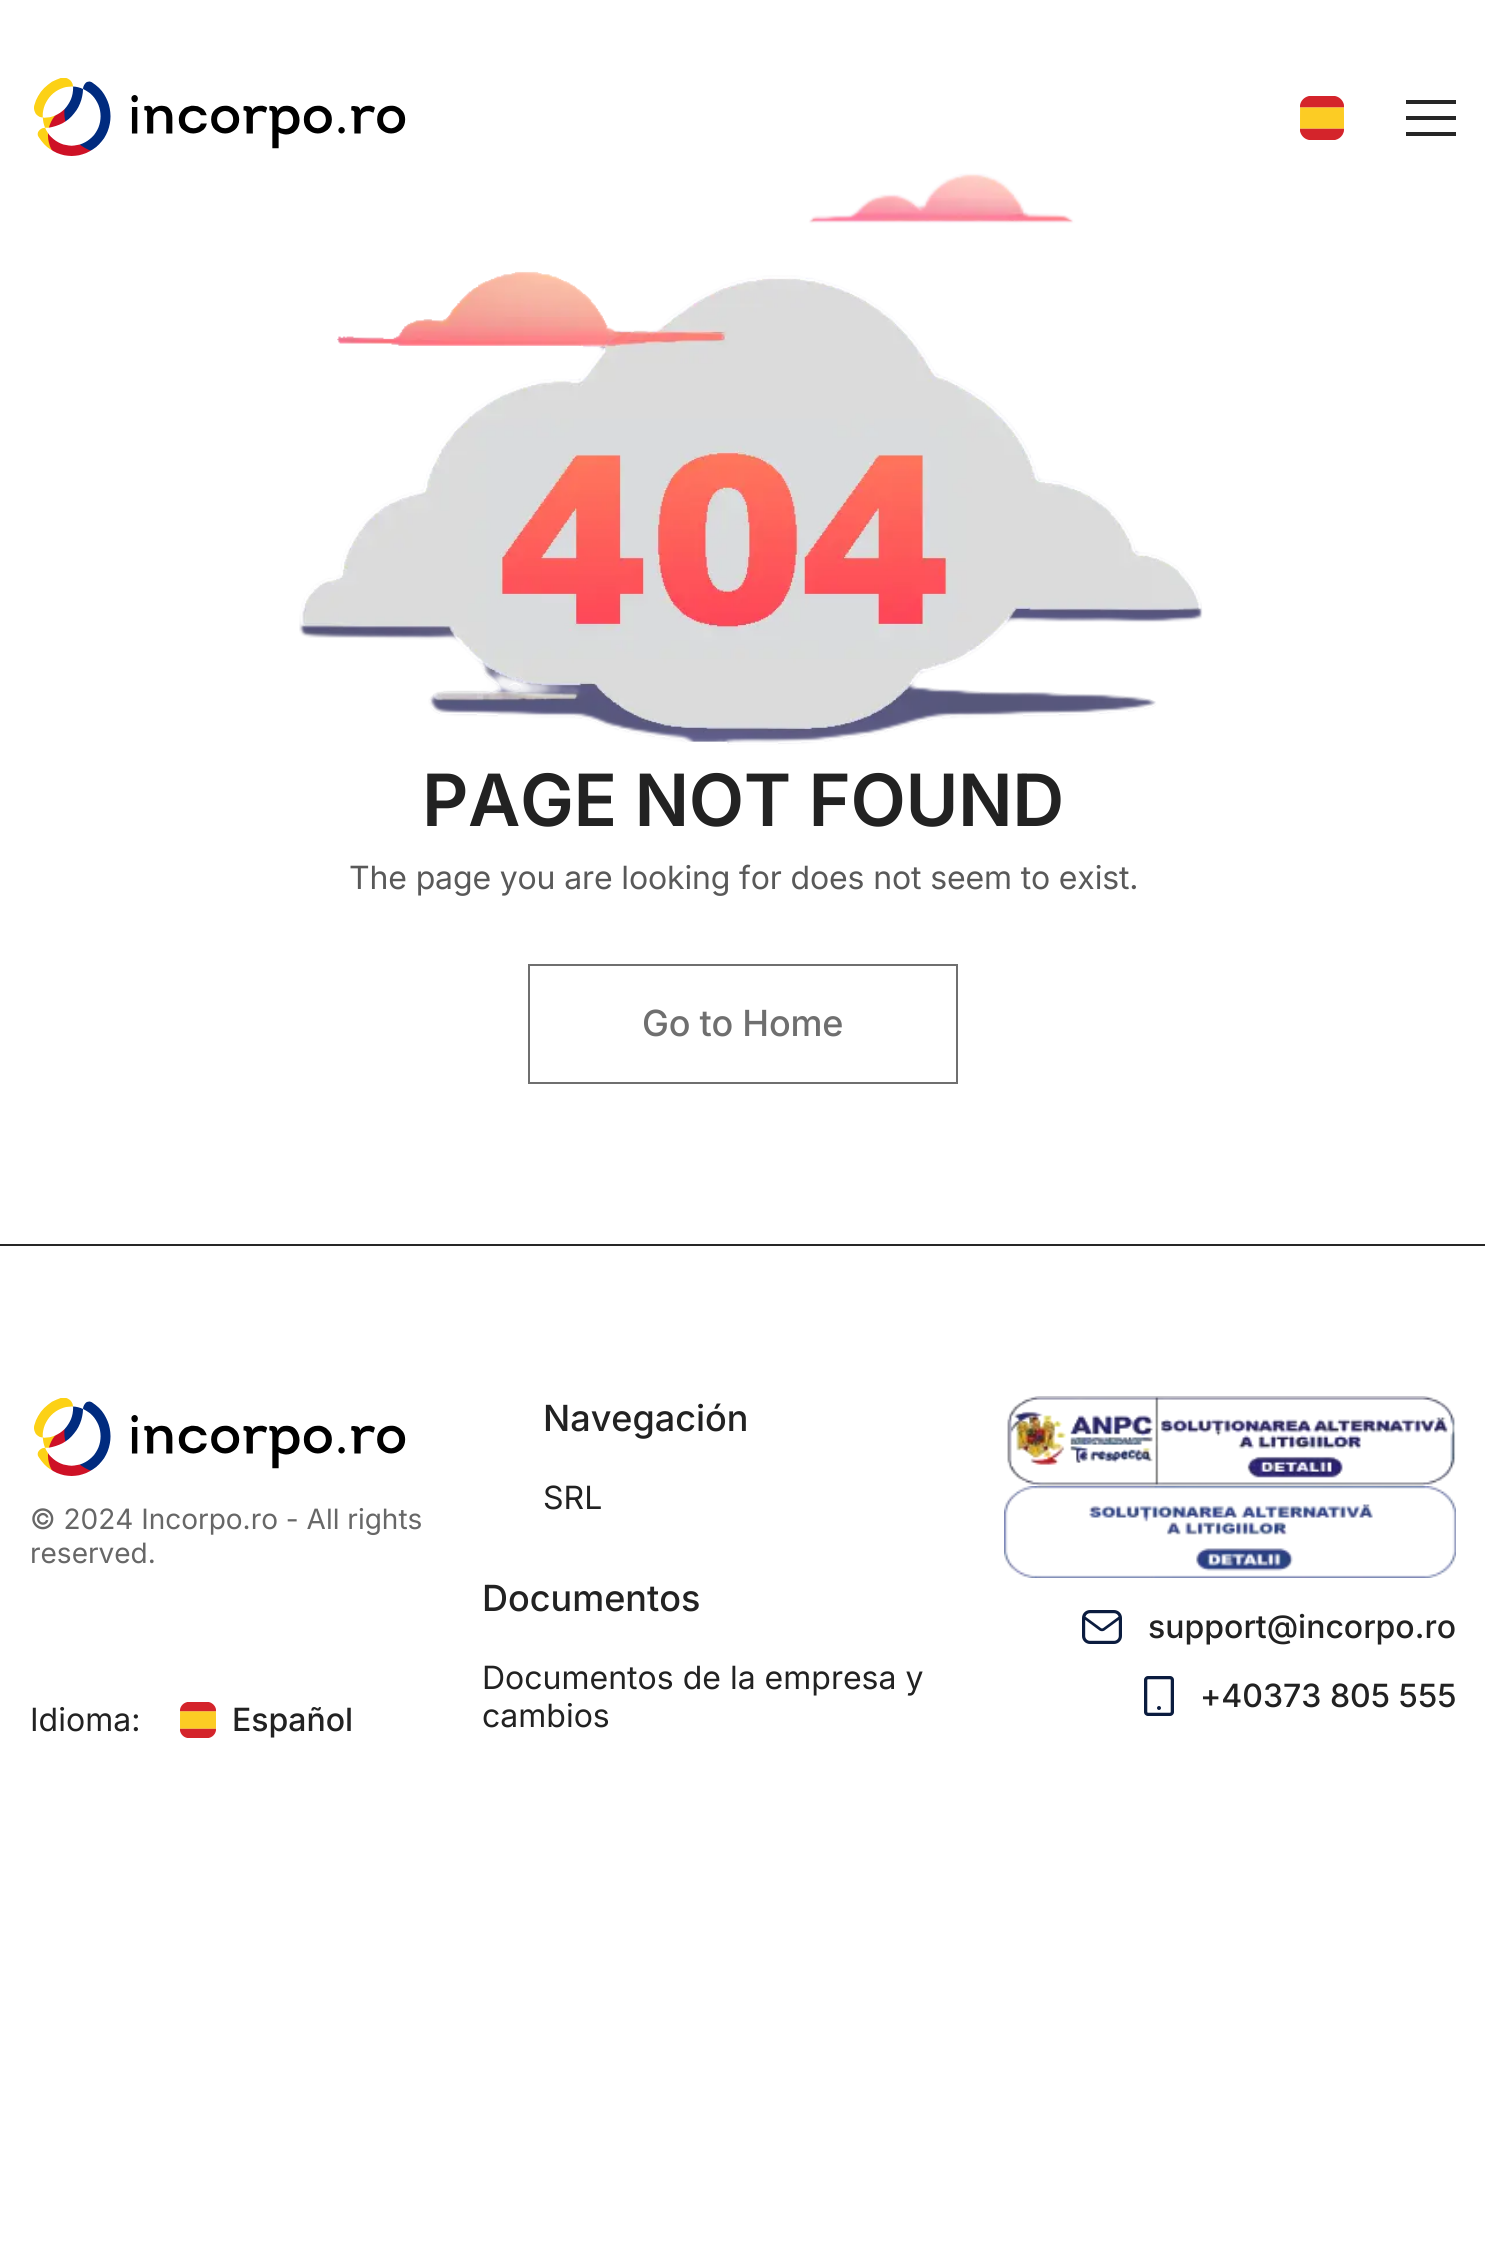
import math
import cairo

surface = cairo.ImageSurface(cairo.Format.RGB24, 1485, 2241)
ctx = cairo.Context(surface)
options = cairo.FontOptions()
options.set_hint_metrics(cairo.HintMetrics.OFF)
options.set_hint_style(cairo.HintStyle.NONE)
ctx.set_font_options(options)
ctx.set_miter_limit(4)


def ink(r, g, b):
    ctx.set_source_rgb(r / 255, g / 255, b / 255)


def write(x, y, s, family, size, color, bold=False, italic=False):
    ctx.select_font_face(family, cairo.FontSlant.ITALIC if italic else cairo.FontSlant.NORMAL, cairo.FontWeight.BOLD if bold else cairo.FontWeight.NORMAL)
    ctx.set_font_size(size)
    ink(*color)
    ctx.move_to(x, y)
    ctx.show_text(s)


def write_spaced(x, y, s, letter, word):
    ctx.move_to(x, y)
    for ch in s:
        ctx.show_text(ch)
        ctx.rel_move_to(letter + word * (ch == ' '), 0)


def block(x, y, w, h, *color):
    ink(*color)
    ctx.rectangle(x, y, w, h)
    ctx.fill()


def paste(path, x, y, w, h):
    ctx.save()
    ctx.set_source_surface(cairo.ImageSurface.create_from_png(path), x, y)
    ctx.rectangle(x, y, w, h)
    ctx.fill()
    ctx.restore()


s1 = dict(family="Inter", size=28, color=(103, 103, 103))
s2 = dict(family="Inter", size=32, color=(34, 34, 34))
s3 = dict(family="Inter Medium", size=32, color=(34, 34, 34))
s4 = dict(family="Inter Medium", size=36, color=(34, 34, 34))

ink(255, 255, 255)
ctx.paint()
paste("pic1.png", 34, 78, 372, 78)
paste("pic2.png", 1300, 96, 44, 44)
block(1406, 100, 50, 4, 38, 38, 38)
block(1406, 116, 50, 4, 38, 38, 38)
block(1406, 132, 50, 4, 38, 38, 38)
paste("pic3.png", 299, 173, 904, 572)
ctx.select_font_face("Inter SemiBold")
ctx.set_font_size(72)
ink(34, 34, 34)
write_spaced(422, 826, "PAGE NOT FOUND", -0.4, 0)
ctx.select_font_face("Inter")
ctx.set_font_size(32)
ink(89, 89, 89)
write_spaced(349, 889, "The page you are looking for does not seem to exist.", -0.15, 0)
ctx.rectangle(529, 965, 428, 118)
ink(111, 111, 111)
ctx.stroke()
ctx.select_font_face("Inter Medium")
ctx.set_font_size(36)
write_spaced(642, 1036, "Go to Home", -0.25, 0)
block(0, 1244, 1485, 2, 38, 38, 38)
paste("pic1.png", 34, 1398, 372, 78)
write(30, 1529, "© 2024 Incorpo.ro - All rights", **s1)
write(30, 1563, "reserved.", **s1)
write(30, 1731, "Idioma:", **s2)
paste("pic4.png", 180, 1702, 36, 36)
write(232, 1731, "Español", **s3)
write(543, 1431, "Navegación", **s4)
write(543, 1509, "SRL", **s2)
write(482, 1611, "Documentos", **s4)
write(482, 1689, "Documentos de la empresa y", **s2)
write(482, 1727, "cambios", **s2)
paste("pic5.png", 1007, 1396, 449, 90)
paste("pic6.png", 1004, 1486, 452, 92)
paste("pic7.png", 1082, 1610, 40, 34)
write(1148, 1638, "support@incorpo.ro", **s3)
paste("pic8.png", 1144, 1676, 30, 40)
write(1200, 1707, "+40373 805 555", **s3)
surface.write_to_png("screenshot.png")
